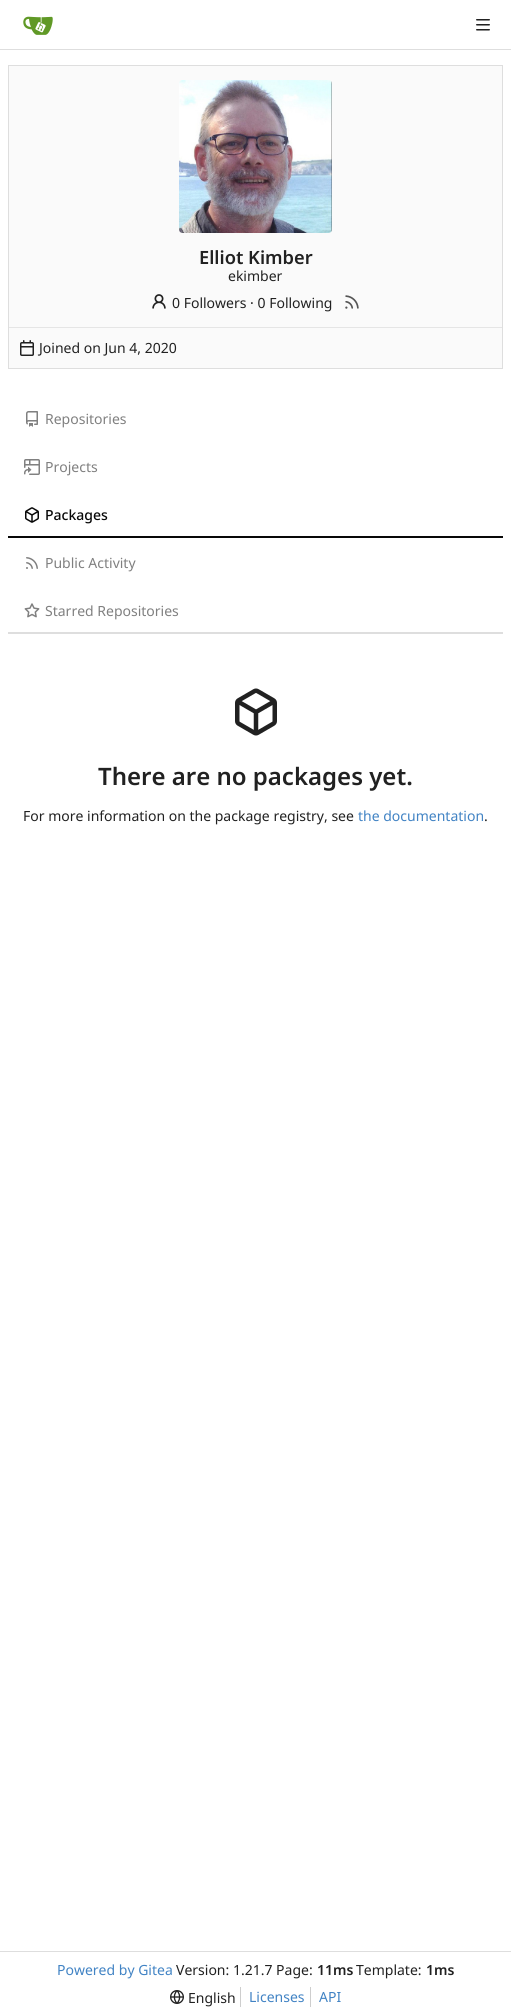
import math
import cairo

surface = cairo.ImageSurface(cairo.Format.RGB24, 511, 2015)
ctx = cairo.Context(surface)
options = cairo.FontOptions()
options.set_hint_metrics(cairo.HintMetrics.OFF)
options.set_hint_style(cairo.HintStyle.NONE)
ctx.set_font_options(options)
ctx.set_miter_limit(4)


def ink(r, g, b):
    ctx.set_source_rgb(r / 255, g / 255, b / 255)


def write(x, y, s, family, size, color, bold=False, italic=False):
    ctx.select_font_face(family, cairo.FontSlant.ITALIC if italic else cairo.FontSlant.NORMAL, cairo.FontWeight.BOLD if bold else cairo.FontWeight.NORMAL)
    ctx.set_font_size(size)
    ink(*color)
    ctx.move_to(x, y)
    ctx.show_text(s)


def block(x, y, w, h, *color):
    ink(*color)
    ctx.rectangle(x, y, w, h)
    ctx.fill()


def paste(path, x, y, w, h):
    ctx.save()
    ctx.set_source_surface(cairo.ImageSurface.create_from_png(path), x, y)
    ctx.rectangle(x, y, w, h)
    ctx.fill()
    ctx.restore()


s1 = dict(family="Noto Sans SemiBold", size=18.25, color=(33, 33, 33))
s2 = dict(family="Noto Sans", size=14, color=(33, 33, 33))
s3 = dict(family="Noto Sans", size=14, color=(128, 128, 128))
s4 = dict(family="Noto Sans Medium", size=14, color=(8, 8, 8))
s5 = dict(family="Noto Sans SemiBold", size=24, color=(33, 33, 33))
s6 = dict(family="Noto Sans", size=14, color=(65, 131, 196))
s7 = dict(family="Noto Sans SemiBold", size=14, color=(33, 33, 33))

ink(255, 255, 255)
ctx.paint()
block(0, 49, 511, 1, 222, 222, 222)
paste("pic1.png", 23, 16, 30, 19)
paste("pic2.png", 476, 19, 14, 12)
ink(250, 250, 250)
ctx.rectangle(8.5, 65.5, 494, 303)
ctx.fill_preserve()
ink(222, 222, 222)
ctx.set_line_width(1)
ctx.stroke()
paste("pic3.png", 179, 80, 153, 153)
write(199, 264, "Elliot Kimber", **s1)
write(228, 281, "ekimber", **s2)
paste("pic4.png", 152, 294, 14, 15)
write(172, 308, "0 Followers · 0 Following", **s2)
paste("pic5.png", 345, 295, 14, 14)
block(9, 327, 493, 1, 229, 229, 229)
paste("pic6.png", 20, 340, 14, 16)
write(39, 353, "Joined on Jun 4, 2020", **s2)
block(8, 632, 495, 2, 222, 222, 222)
paste("pic7.png", 26, 411, 12, 16)
write(45, 424, "Repositories", **s3)
paste("pic8.png", 24, 459, 16, 16)
write(45, 472, "Projects", **s3)
block(8, 536, 495, 2, 8, 8, 8)
paste("pic9.png", 25, 507, 14, 16)
write(45, 520, "Packages", **s4)
paste("pic10.png", 26, 557, 12, 12)
write(45, 568, "Public Activity", **s3)
paste("pic11.png", 24, 603, 16, 15)
write(45, 616, "Starred Repositories", **s3)
paste("pic12.png", 235, 688, 42, 48)
write(98, 785, "There are no packages yet.", **s5)
write(23, 821, "For more information on the package registry, see", **s2)
write(358, 821, "the documentation", **s6)
write(484, 821, ".", **s2)
block(0, 1951, 511, 1, 222, 222, 222)
write(57, 1975, "Powered by Gitea", **s6)
write(176, 1975, "Version: 1.21.7 Page:", **s2)
write(317, 1975, "11ms", **s7)
write(356, 1975, "Template:", **s2)
write(426, 1975, "1ms", **s7)
paste("pic13.png", 170, 1990, 14, 14)
write(188, 2003, "English", **s2)
block(240, 1987, 1, 20, 206, 206, 206)
write(249, 2002, "Licenses", **s6)
block(310, 1987, 1, 20, 206, 206, 206)
write(319, 2002, "API", **s6)
surface.write_to_png("screenshot.png")
